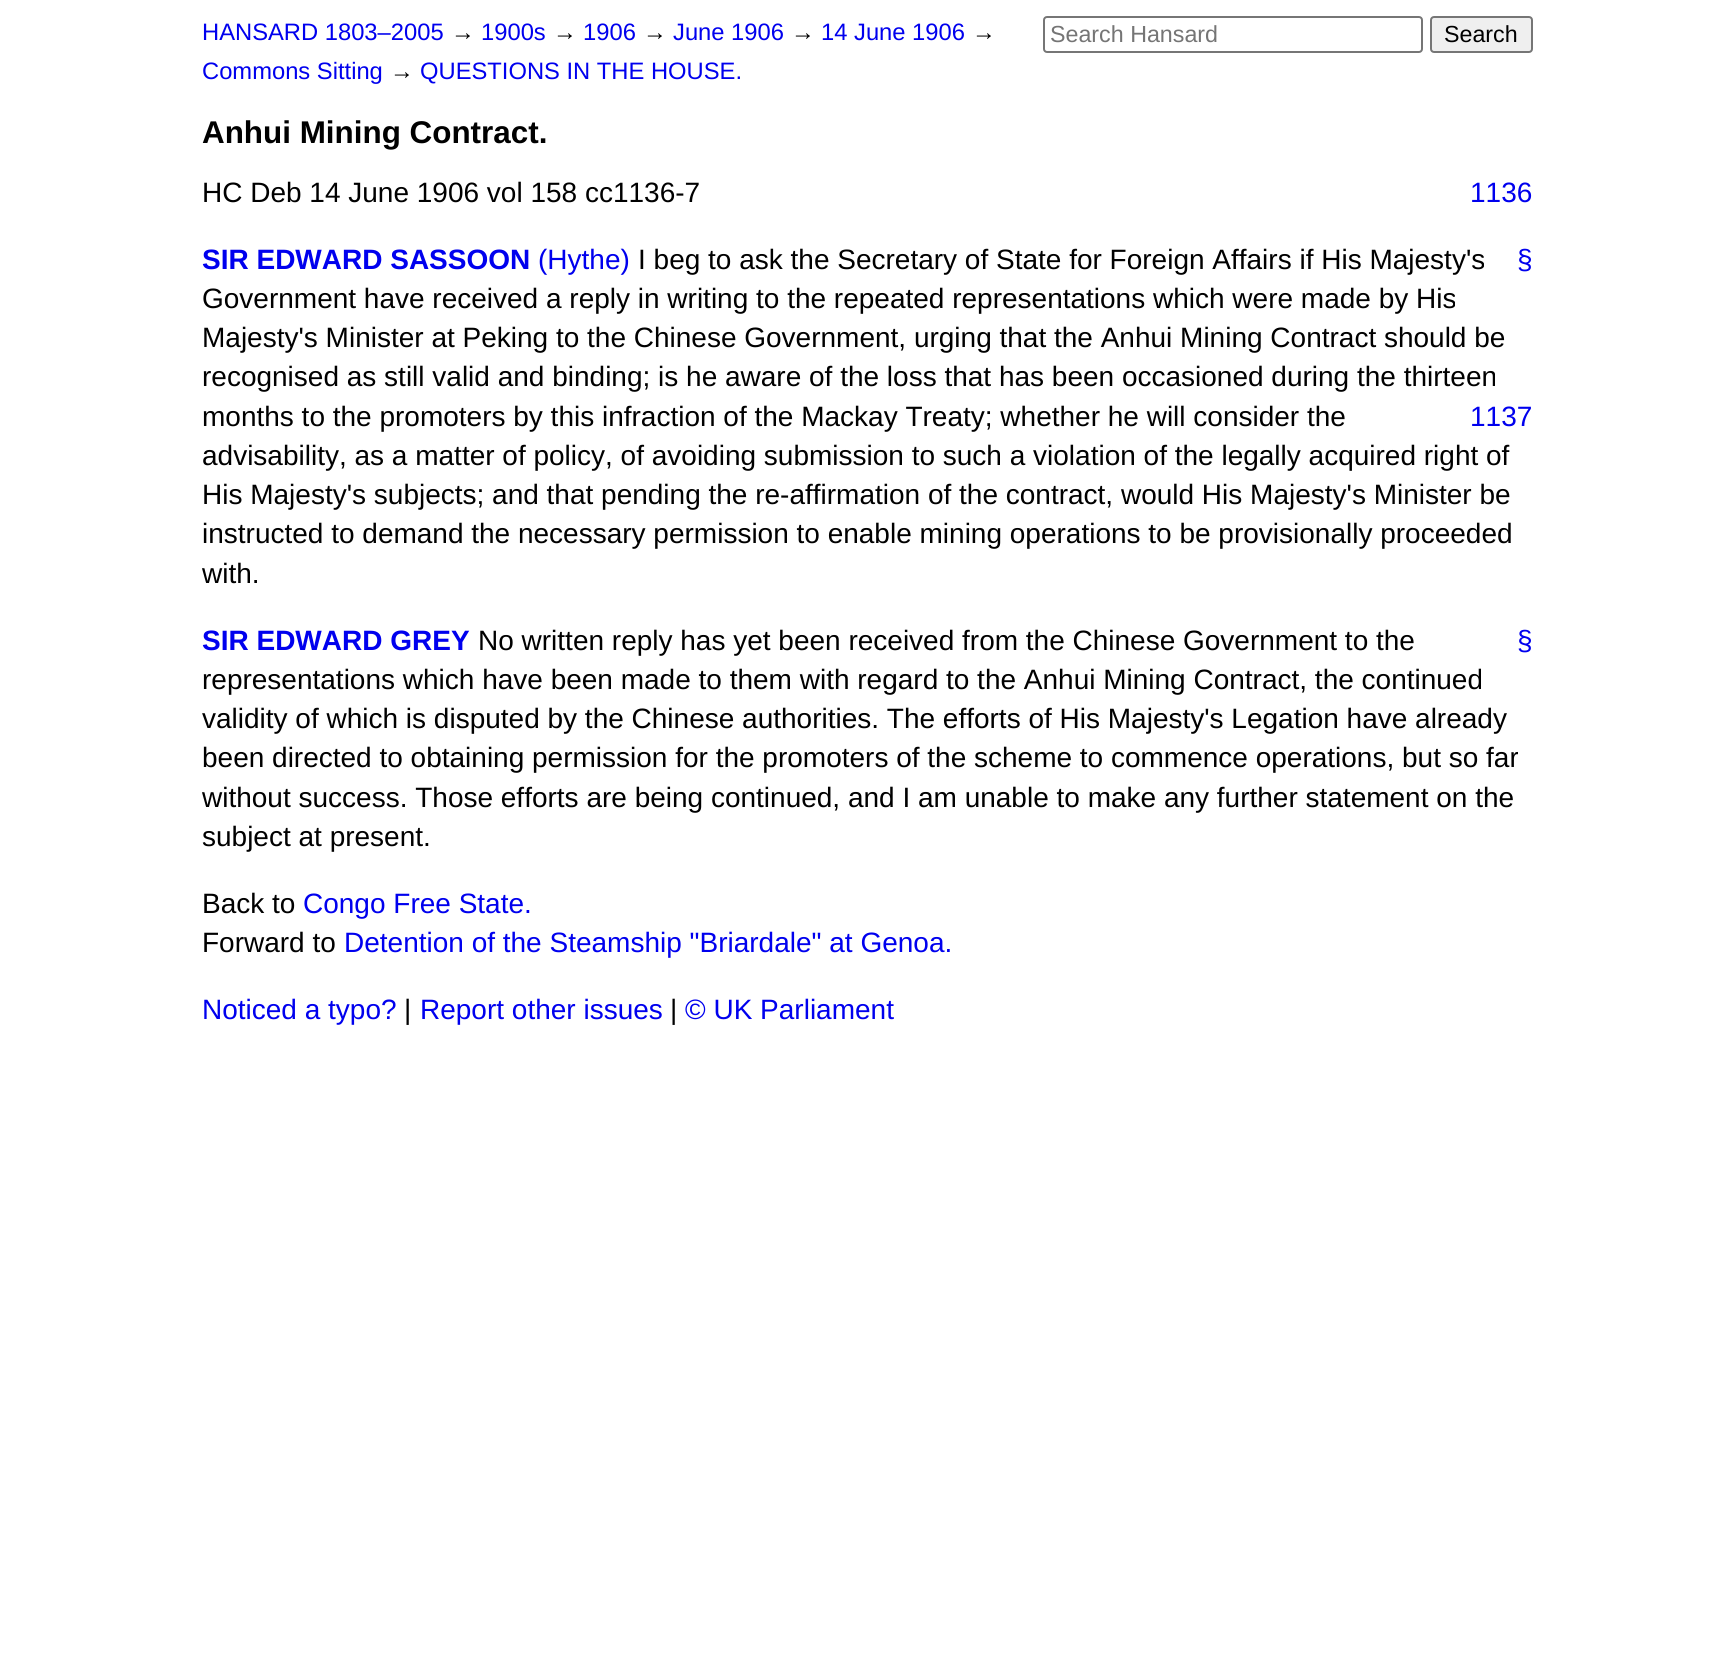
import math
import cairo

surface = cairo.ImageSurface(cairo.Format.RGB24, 1734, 1657)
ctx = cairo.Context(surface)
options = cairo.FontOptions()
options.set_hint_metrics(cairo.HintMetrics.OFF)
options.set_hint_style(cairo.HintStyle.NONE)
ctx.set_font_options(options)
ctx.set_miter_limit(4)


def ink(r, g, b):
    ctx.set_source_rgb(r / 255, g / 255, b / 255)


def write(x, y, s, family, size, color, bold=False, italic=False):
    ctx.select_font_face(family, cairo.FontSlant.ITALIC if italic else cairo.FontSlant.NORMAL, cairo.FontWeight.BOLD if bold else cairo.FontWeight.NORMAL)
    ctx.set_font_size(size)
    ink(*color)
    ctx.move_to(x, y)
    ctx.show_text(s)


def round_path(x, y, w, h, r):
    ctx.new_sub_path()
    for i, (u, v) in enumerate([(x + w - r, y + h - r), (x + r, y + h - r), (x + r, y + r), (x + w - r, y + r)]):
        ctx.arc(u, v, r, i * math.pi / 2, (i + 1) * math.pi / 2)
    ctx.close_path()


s1 = dict(family="Liberation Sans", size=23.75, color=(0, 0, 238))
s2 = dict(family="Liberation Sans", size=23.75, color=(0, 0, 0))
s3 = dict(family="Liberation Sans", size=23.25, color=(117, 117, 117))
s4 = dict(family="Liberation Sans", size=23.25, color=(0, 0, 0))
s5 = dict(family="Liberation Sans", size=31.4, color=(0, 0, 0), bold=True)
s6 = dict(family="Liberation Sans", size=28, color=(0, 0, 0))
s7 = dict(family="Liberation Sans", size=28, color=(0, 0, 238))
s8 = dict(family="Liberation Sans", size=28, color=(0, 0, 238), bold=True)

ink(255, 255, 255)
ctx.paint()
write(202, 40, "HANSARD 1803–2005", **s1)
write(451, 40, "→", **s2)
write(481, 40, "1900s", **s1)
write(553, 40, "→", **s2)
write(583, 40, "1906", **s1)
write(643, 40, "→", **s2)
write(673, 40, "June 1906", **s1)
write(791, 40, "→", **s2)
write(821, 40, "14 June 1906", **s1)
write(972, 40, "→", **s2)
write(202, 79, "Commons Sitting", **s1)
write(390, 79, "→", **s2)
write(420, 79, "QUESTIONS IN THE HOUSE.", **s1)
round_path(1044, 17, 378, 35, 3)
ink(118, 118, 118)
ctx.stroke()
write(1050, 42, "Search Hansard", **s3)
ink(239, 239, 239)
round_path(1431, 17, 101, 35, 3)
ctx.fill_preserve()
ink(118, 118, 118)
ctx.stroke()
write(1444, 42, "Search", **s4)
write(202, 143, "Anhui Mining Contract.", **s5)
write(202, 202, "HC Deb 14 June 1906 vol 158 cc1136-7", **s6)
write(1470, 202, "1136", **s7)
write(638, 269, "I beg to ask the Secretary of State for Foreign Affairs if His Majesty's", **s6)
write(202, 308, "Government have received a reply in writing to the repeated representations which were made by His", **s6)
write(202, 347, "Majesty's Minister at Peking to the Chinese Government, urging that the Anhui Mining Contract should be", **s6)
write(202, 386, "recognised as still valid and binding; is he aware of the loss that has been occasioned during the thirteen", **s6)
write(202, 426, "months to the promoters by this infraction of the Mackay Treaty; whether he will consider the", **s6)
write(1470, 426, "1137", **s7)
write(202, 465, "advisability, as a matter of policy, of avoiding submission to such a violation of the legally acquired right of", **s6)
write(202, 504, "His Majesty's subjects; and that pending the re-affirmation of the contract, would His Majesty's Minister be", **s6)
write(202, 543, "instructed to demand the necessary permission to enable mining operations to be provisionally proceeded", **s6)
write(202, 583, "with.", **s6)
write(202, 269, "SIR EDWARD SASSOON", **s8)
write(538, 269, "(Hythe)", **s7)
write(1517, 269, "§", **s7)
write(202, 650, "SIR EDWARD GREY", **s8)
write(478, 650, "No written reply has yet been received from the Chinese Government to the", **s6)
write(1517, 650, "§", **s7)
write(202, 689, "representations which have been made to them with regard to the Anhui Mining Contract, the continued", **s6)
write(202, 728, "validity of which is disputed by the Chinese authorities. The efforts of His Majesty's Legation have already", **s6)
write(202, 767, "been directed to obtaining permission for the promoters of the scheme to commence operations, but so far", **s6)
write(202, 807, "without success. Those efforts are being continued, and I am unable to make any further statement on the", **s6)
write(202, 846, "subject at present.", **s6)
write(202, 913, "Back to", **s6)
write(303, 913, "Congo Free State.", **s7)
write(202, 952, "Forward to", **s6)
write(344, 952, "Detention of the Steamship \"Briardale\" at Genoa.", **s7)
write(202, 1019, "Noticed a typo?", **s7)
write(404, 1019, "|", **s6)
write(420, 1019, "Report other issues", **s7)
write(670, 1019, "|", **s6)
write(685, 1019, "© UK Parliament", **s7)
surface.write_to_png("screenshot.png")
